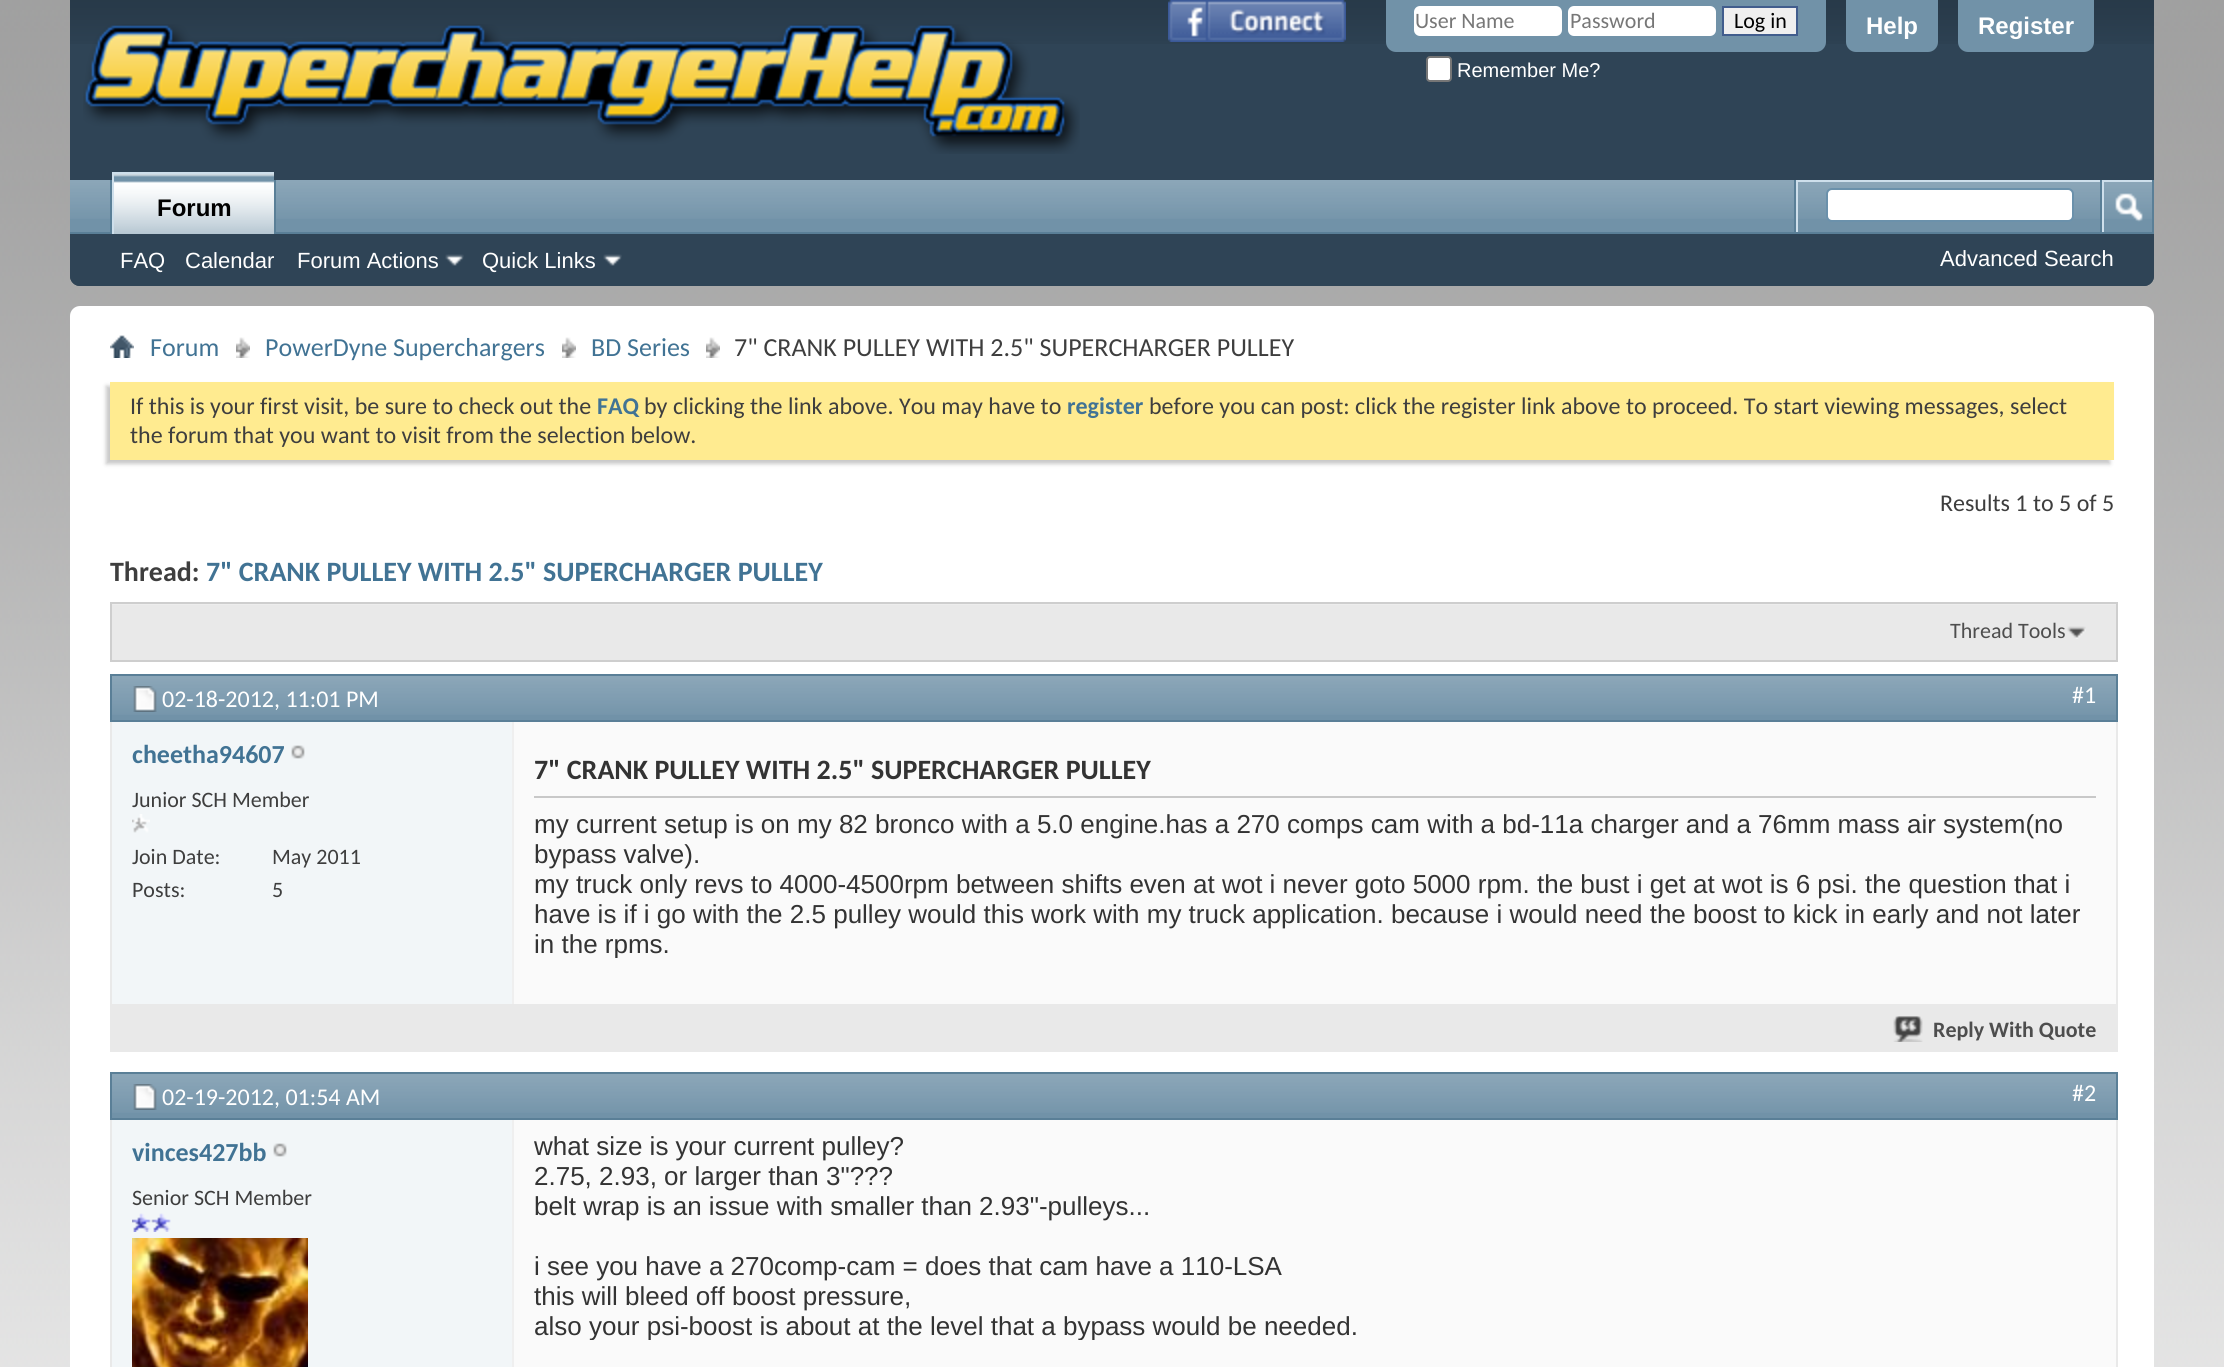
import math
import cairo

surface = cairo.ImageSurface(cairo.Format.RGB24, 2224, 1367)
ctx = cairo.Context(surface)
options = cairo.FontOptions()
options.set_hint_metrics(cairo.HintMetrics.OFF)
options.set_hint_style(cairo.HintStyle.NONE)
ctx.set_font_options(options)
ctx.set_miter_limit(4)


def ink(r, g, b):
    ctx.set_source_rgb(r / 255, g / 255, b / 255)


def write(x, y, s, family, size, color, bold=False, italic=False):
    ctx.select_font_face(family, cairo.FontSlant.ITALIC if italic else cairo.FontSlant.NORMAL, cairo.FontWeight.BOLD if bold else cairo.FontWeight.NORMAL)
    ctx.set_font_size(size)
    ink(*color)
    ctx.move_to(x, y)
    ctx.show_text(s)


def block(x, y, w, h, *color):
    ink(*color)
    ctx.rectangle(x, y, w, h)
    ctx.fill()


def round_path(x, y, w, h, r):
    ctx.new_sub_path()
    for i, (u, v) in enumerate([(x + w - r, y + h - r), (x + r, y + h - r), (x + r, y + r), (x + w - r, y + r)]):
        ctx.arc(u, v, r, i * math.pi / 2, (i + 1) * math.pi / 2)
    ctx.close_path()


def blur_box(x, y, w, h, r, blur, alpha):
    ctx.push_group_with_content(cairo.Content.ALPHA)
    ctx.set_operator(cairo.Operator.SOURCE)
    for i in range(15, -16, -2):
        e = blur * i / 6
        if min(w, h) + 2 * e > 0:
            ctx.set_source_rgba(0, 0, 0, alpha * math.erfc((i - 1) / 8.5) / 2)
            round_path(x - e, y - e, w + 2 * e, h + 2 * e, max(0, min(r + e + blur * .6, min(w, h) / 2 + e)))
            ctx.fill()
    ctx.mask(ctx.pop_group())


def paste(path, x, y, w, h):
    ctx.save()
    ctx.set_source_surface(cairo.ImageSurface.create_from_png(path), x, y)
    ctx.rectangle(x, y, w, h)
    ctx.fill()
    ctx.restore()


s1 = dict(family="Carlito", size=22, color=(119, 119, 119))
s2 = dict(family="Carlito", size=22, color=(0, 0, 0))
s3 = dict(family="Liberation Sans", size=20, color=(255, 255, 255))
s4 = dict(family="Liberation Sans", size=24, color=(255, 255, 255), bold=True)
s5 = dict(family="Liberation Sans", size=24, color=(0, 0, 0), bold=True)
s6 = dict(family="Liberation Sans", size=22, color=(255, 255, 255))
s7 = dict(family="Carlito", size=26, color=(65, 115, 148))
s8 = dict(family="Carlito", size=26, color=(62, 62, 62))
s9 = dict(family="Carlito", size=24, color=(62, 62, 62))
s10 = dict(family="Carlito", size=24, color=(65, 115, 148), bold=True)
s11 = dict(family="Carlito", size=28, color=(62, 62, 62), bold=True)
s12 = dict(family="Carlito", size=28, color=(65, 115, 148), bold=True)
s13 = dict(family="Carlito", size=22, color=(78, 78, 78))
s14 = dict(family="Carlito", size=24, color=(255, 255, 255))
s15 = dict(family="Carlito", size=26, color=(65, 115, 148), bold=True)
s16 = dict(family="Carlito", size=22, color=(62, 62, 62))
s17 = dict(family="Carlito", size=28, color=(51, 51, 51), bold=True)
s18 = dict(family="Liberation Sans", size=26, color=(51, 51, 51))
s19 = dict(family="Carlito", size=22, color=(78, 78, 78), bold=True)

ink(255, 255, 255)
ctx.paint()
paste("pic1.png", 0, 0, 2224, 1367)
ink(47, 68, 86)
ctx.new_path()
ctx.move_to(70, 0)
ctx.line_to(2154, 0)
ctx.line_to(2154, 276)
ctx.curve_to(2154, 281.5, 2149.5, 286, 2144, 286)
ctx.line_to(80, 286)
ctx.curve_to(74.5, 286, 70, 281.5, 70, 276)
ctx.close_path()
ctx.fill()
paste("pic2.png", 70, 0, 2084, 44)
paste("pic3.png", 83, 24, 997, 130)
paste("pic4.png", 1168, 0, 178, 42)
ink(113, 146, 168)
ctx.new_path()
ctx.move_to(1386, 0)
ctx.line_to(1826, 0)
ctx.line_to(1826, 42)
ctx.curve_to(1826, 47.5, 1821.5, 52, 1816, 52)
ctx.line_to(1396, 52)
ctx.curve_to(1390.5, 52, 1386, 47.5, 1386, 42)
ctx.close_path()
ctx.fill()
ink(255, 255, 255)
round_path(1414, 6, 148, 30, 6)
ctx.fill()
write(1415, 28, "User Name", **s1)
ink(255, 255, 255)
round_path(1568, 6, 148, 30, 6)
ctx.fill()
write(1570, 28, "Password", **s1)
ink(239, 239, 239)
ctx.rectangle(1723, 7, 74, 28)
ctx.fill_preserve()
ink(65, 93, 141)
ctx.stroke()
write(1734, 28, "Log in", **s2)
ink(255, 255, 255)
round_path(1427, 57, 24, 24, 3)
ctx.fill_preserve()
ink(118, 118, 118)
ctx.stroke()
write(1457, 77, "Remember Me?", **s3)
ink(113, 146, 168)
ctx.new_path()
ctx.move_to(1846, 0)
ctx.line_to(1938, 0)
ctx.line_to(1938, 42)
ctx.curve_to(1938, 47.5, 1933.5, 52, 1928, 52)
ctx.line_to(1856, 52)
ctx.curve_to(1850.5, 52, 1846, 47.5, 1846, 42)
ctx.close_path()
ctx.fill()
write(1866, 34, "Help", **s4)
ink(113, 146, 168)
ctx.new_path()
ctx.move_to(1958, 0)
ctx.line_to(2094, 0)
ctx.line_to(2094, 42)
ctx.curve_to(2094, 47.5, 2089.5, 52, 2084, 52)
ctx.line_to(1968, 52)
ctx.curve_to(1962.5, 52, 1958, 47.5, 1958, 42)
ctx.close_path()
ctx.fill()
write(1978, 34, "Register", **s4)
ink(47, 68, 86)
ctx.new_path()
ctx.move_to(70, 180)
ctx.line_to(2154, 180)
ctx.line_to(2154, 276)
ctx.curve_to(2154, 281.5, 2149.5, 286, 2144, 286)
ctx.line_to(80, 286)
ctx.curve_to(74.5, 286, 70, 281.5, 70, 276)
ctx.close_path()
ctx.fill()
block(70, 180, 2082, 52, 113, 146, 168)
paste("pic5.png", 70, 180, 2082, 39)
block(274, 180, 2, 52, 90, 127, 151)
block(110, 180, 2, 52, 90, 127, 151)
block(70, 232, 2084, 2, 90, 127, 151)
block(114, 174, 160, 60, 113, 146, 168)
paste("pic6.png", 114, 174, 160, 60)
block(112, 172, 162, 2, 206, 223, 235)
block(112, 172, 2, 62, 206, 223, 235)
write(157, 216, "Forum", **s5)
write(120, 268, "FAQ", **s6)
write(185, 268, "Calendar", **s6)
write(297, 268, "Forum Actions", **s6)
paste("pic7.png", 445, 254, 19, 12)
write(482, 268, "Quick Links", **s6)
paste("pic7.png", 603, 254, 19, 12)
block(1794, 180, 2, 52, 90, 127, 151)
block(1796, 180, 304, 2, 206, 223, 235)
block(1796, 180, 2, 52, 206, 223, 235)
ink(255, 255, 255)
round_path(1827, 189, 246, 32, 5)
ctx.fill_preserve()
ink(107, 145, 171)
ctx.stroke()
block(2152, 180, 2, 52, 90, 127, 151)
block(2100, 180, 2, 52, 90, 127, 151)
block(2102, 180, 50, 2, 206, 223, 235)
block(2102, 180, 2, 52, 206, 223, 235)
paste("pic8.png", 2115, 193, 28, 29)
write(1940, 266, "Advanced Search", **s6)
round_path(70, 306, 2084, 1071, 10)
ctx.fill()
paste("pic9.png", 110, 335, 24, 23)
paste("pic10.png", 236, 337, 14, 21)
write(150, 356, "Forum", **s7)
paste("pic10.png", 562, 337, 14, 21)
write(265, 356, "PowerDyne Superchargers", **s7)
paste("pic10.png", 706, 337, 14, 21)
write(591, 356, "BD Series", **s7)
write(734, 356, "7\" CRANK PULLEY WITH 2.5\" SUPERCHARGER PULLEY", **s8)
ink(200, 200, 200)
blur_box(106, 386, 2004, 78, 0, 2, 1)
block(110, 382, 2004, 78, 255, 235, 144)
write(130, 414, "If this is your first visit, be sure to check out the", **s9)
write(597, 414, "FAQ", **s10)
write(644, 414, "by clicking the link above. You may have to", **s9)
write(1067, 414, "register", **s10)
write(1149, 414, "before you can post: click the register link above to proceed. To start viewing messages, select", **s9)
write(130, 443, "the forum that you want to visit from the selection below.", **s9)
write(1940, 511, "Results 1 to 5 of 5", **s9)
write(110, 581, "Thread:", **s11)
write(206, 581, "7\" CRANK PULLEY WITH 2.5\" SUPERCHARGER PULLEY", **s12)
block(112, 605, 2004, 55, 233, 233, 233)
block(110, 604, 2008, 1, 237, 237, 237)
ctx.rectangle(111, 603, 2006, 58)
ink(206, 206, 206)
ctx.stroke()
paste("pic11.png", 2067, 626, 19, 13)
write(1950, 638, "Thread Tools", **s13)
ctx.rectangle(111, 675, 2006, 376)
ink(233, 233, 233)
ctx.stroke()
block(112, 676, 2004, 44, 113, 146, 168)
paste("pic12.png", 112, 676, 2004, 39)
ctx.rectangle(111, 675, 2006, 46)
ink(90, 127, 151)
ctx.stroke()
paste("pic13.png", 133, 686, 24, 26)
write(162, 707, "02-18-2012, 11:01 PM", **s14)
write(2072, 703, "#1", **s14)
block(112, 722, 400, 282, 242, 246, 248)
write(132, 763, "cheetha94607", **s15)
paste("pic14.png", 291, 745, 14, 14)
write(132, 807, "Junior SCH Member", **s16)
paste("pic15.png", 132, 814, 18, 19)
write(132, 864, "Join Date:", **s16)
write(272, 864, "May 2011", **s16)
write(132, 897, "Posts:", **s16)
write(272, 897, "5", **s16)
block(514, 722, 1602, 282, 250, 250, 250)
block(512, 722, 2, 282, 239, 239, 239)
block(534, 796, 1562, 2, 200, 200, 200)
write(534, 779, "7\" CRANK PULLEY WITH 2.5\" SUPERCHARGER PULLEY", **s17)
write(534, 833, "my current setup is on my 82 bronco with a 5.0 engine.has a 270 comps cam with a bd-11a charger and a 76mm mass air system(no", **s18)
write(534, 863, "bypass valve).", **s18)
write(534, 893, "my truck only revs to 4000-4500rpm between shifts even at wot i never goto 5000 rpm. the bust i get at wot is 6 psi. the question that i", **s18)
write(534, 923, "have is if i go with the 2.5 pulley would this work with my truck application. because i would need the boost to kick in early and not later", **s18)
ctx.save()
ctx.rectangle(534, 808, 1562, 150)
ctx.clip()
write(534, 953, "in the rpms.", **s18)
ctx.restore()
block(112, 1004, 2004, 46, 233, 233, 233)
paste("pic16.png", 1893, 1016, 30, 26)
write(1933, 1037, "Reply With Quote", **s19)
ctx.rectangle(111, 1073, 2006, 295)
ink(233, 233, 233)
ctx.stroke()
block(112, 1074, 2004, 44, 113, 146, 168)
paste("pic12.png", 112, 1074, 2004, 39)
ctx.rectangle(111, 1073, 2006, 46)
ink(90, 127, 151)
ctx.stroke()
paste("pic13.png", 133, 1084, 24, 26)
write(162, 1105, "02-19-2012, 01:54 AM", **s14)
write(2072, 1101, "#2", **s14)
block(112, 1120, 400, 247, 242, 246, 248)
write(132, 1161, "vinces427bb", **s15)
paste("pic14.png", 273, 1143, 14, 14)
write(132, 1205, "Senior SCH Member", **s16)
paste("pic17.png", 132, 1213, 39, 19)
paste("pic18.png", 132, 1238, 176, 129)
block(514, 1120, 1602, 247, 250, 250, 250)
block(512, 1120, 2, 247, 239, 239, 239)
write(534, 1155, "what size is your current pulley?", **s18)
write(534, 1185, "2.75, 2.93, or larger than 3\"???", **s18)
write(534, 1215, "belt wrap is an issue with smaller than 2.93\"-pulleys...", **s18)
write(534, 1275, "i see you have a 270comp-cam = does that cam have a 110-LSA", **s18)
write(534, 1305, "this will bleed off boost pressure,", **s18)
ctx.save()
ctx.rectangle(534, 1130, 1562, 210)
ctx.clip()
write(534, 1335, "also your psi-boost is about at the level that a bypass would be needed.", **s18)
ctx.restore()
surface.write_to_png("screenshot.png")
